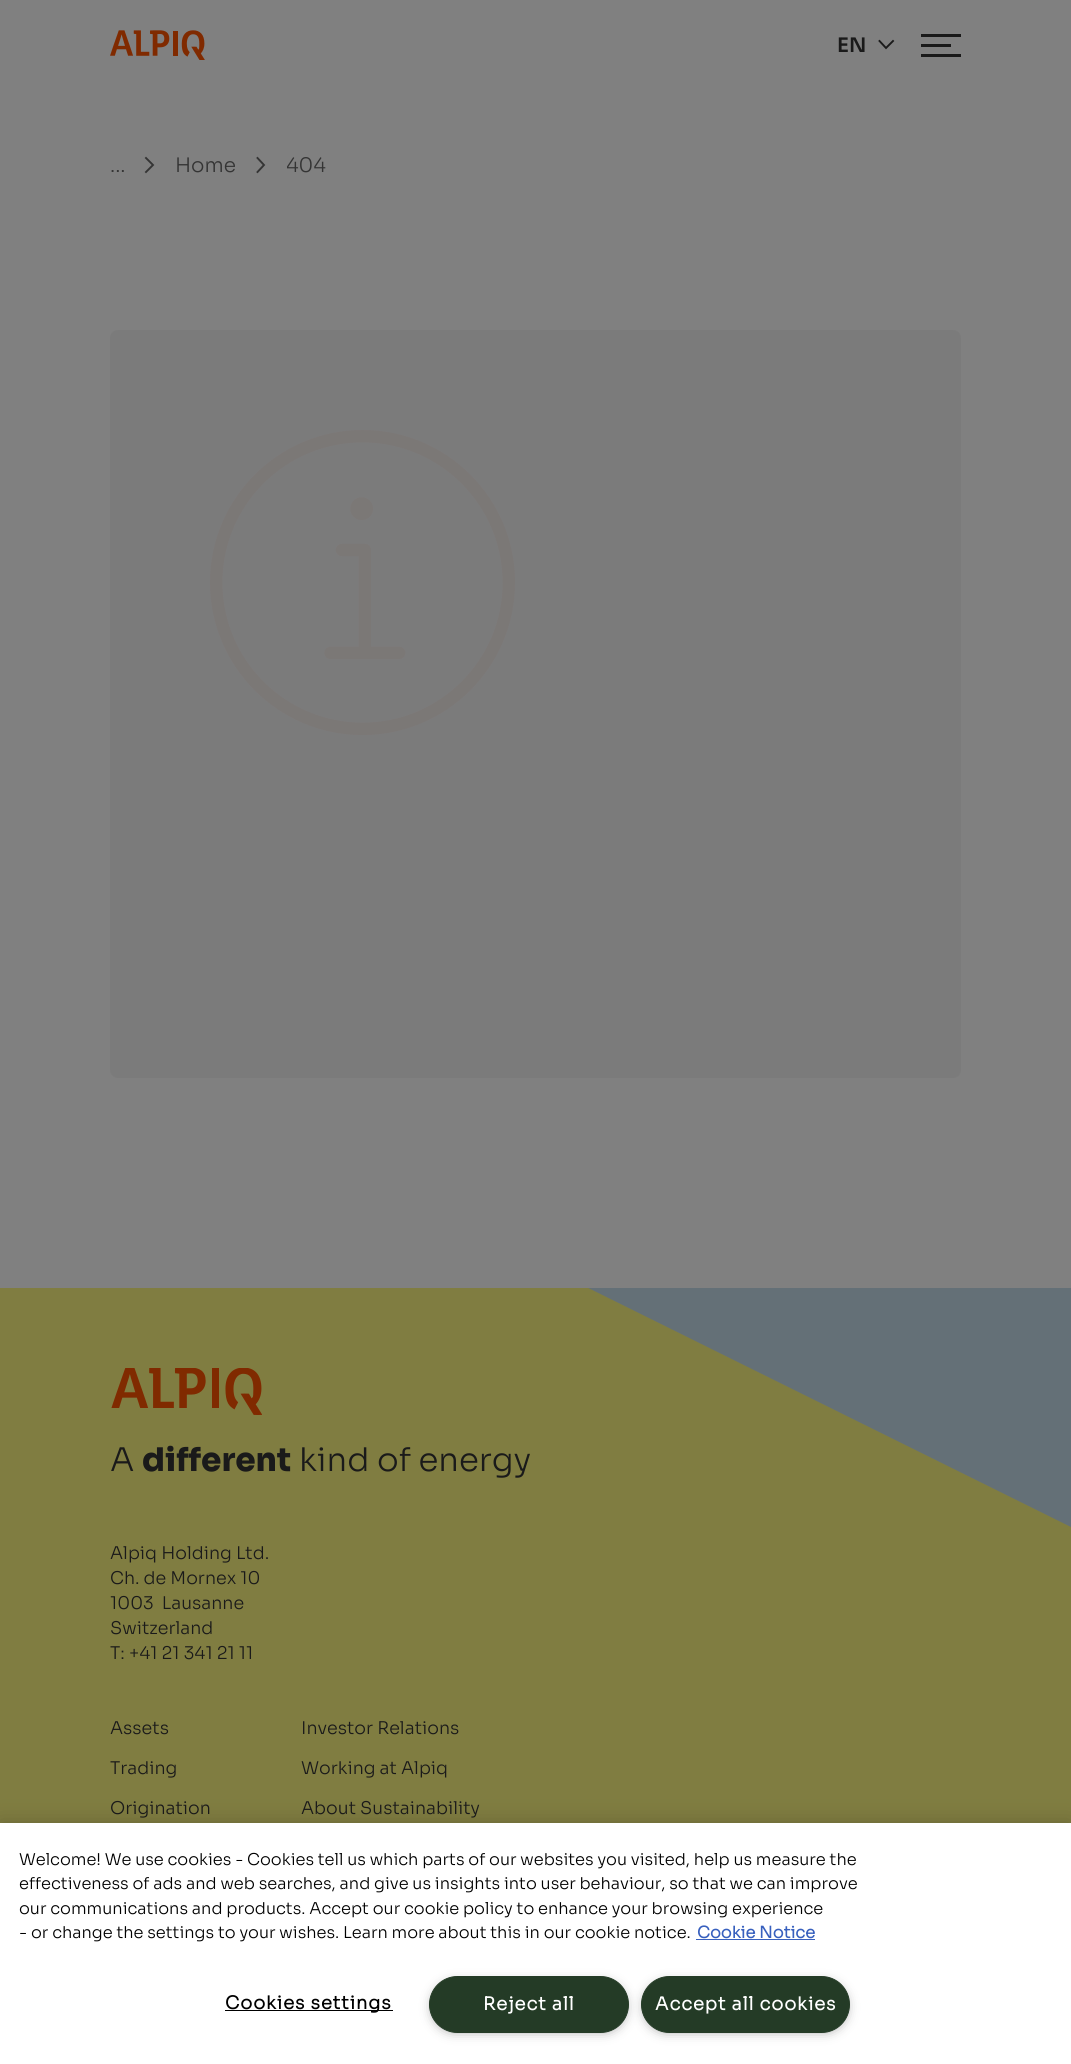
import math
import cairo

surface = cairo.ImageSurface(cairo.Format.RGB24, 1071, 2064)
ctx = cairo.Context(surface)
options = cairo.FontOptions()
options.set_hint_metrics(cairo.HintMetrics.OFF)
options.set_hint_style(cairo.HintStyle.NONE)
ctx.set_font_options(options)
ctx.set_miter_limit(4)


def ink(r, g, b):
    ctx.set_source_rgb(r / 255, g / 255, b / 255)


def write(x, y, s, family, size, color, bold=False, italic=False):
    ctx.select_font_face(family, cairo.FontSlant.ITALIC if italic else cairo.FontSlant.NORMAL, cairo.FontWeight.BOLD if bold else cairo.FontWeight.NORMAL)
    ctx.set_font_size(size)
    ink(*color)
    ctx.move_to(x, y)
    ctx.show_text(s)


def write_spaced(x, y, s, letter, word):
    ctx.move_to(x, y)
    for ch in s:
        ctx.show_text(ch)
        ctx.rel_move_to(letter + word * (ch == ' '), 0)


def block(x, y, w, h, *color):
    ink(*color)
    ctx.rectangle(x, y, w, h)
    ctx.fill()


def round_path(x, y, w, h, r):
    ctx.new_sub_path()
    for i, (u, v) in enumerate([(x + w - r, y + h - r), (x + r, y + h - r), (x + r, y + r), (x + w - r, y + r)]):
        ctx.arc(u, v, r, i * math.pi / 2, (i + 1) * math.pi / 2)
    ctx.close_path()


def blur_box(x, y, w, h, r, blur, alpha):
    ctx.push_group_with_content(cairo.Content.ALPHA)
    ctx.set_operator(cairo.Operator.SOURCE)
    for i in range(15, -16, -2):
        e = blur * i / 6
        if min(w, h) + 2 * e > 0:
            ctx.set_source_rgba(0, 0, 0, alpha * math.erfc((i - 1) / 8.5) / 2)
            round_path(x - e, y - e, w + 2 * e, h + 2 * e, max(0, min(r + e + blur * .6, min(w, h) / 2 + e)))
            ctx.fill()
    ctx.mask(ctx.pop_group())


def paste(path, x, y, w, h):
    ctx.save()
    ctx.set_source_surface(cairo.ImageSurface.create_from_png(path), x, y)
    ctx.rectangle(x, y, w, h)
    ctx.fill()
    ctx.restore()


s1 = dict(family="Sora SemiBold", size=20, color=(26, 26, 26))
s2 = dict(family="Sora Light", size=20, color=(52, 52, 52))
s3 = dict(family="Sora Light", size=32.5, color=(26, 26, 26))
s4 = dict(family="Sora ExtraBold", size=32.5, color=(26, 26, 26))
s5 = dict(family="Sora Light", size=17.5, color=(26, 26, 26))
s6 = dict(family="Sora Light", size=16.25, color=(0, 0, 0))
s7 = dict(family="Sora", size=16.25, color=(56, 96, 190), bold=True)

ink(128, 128, 128)
ctx.paint()
paste("pic1.png", 110, 30, 95, 30)
write(837, 52, "EN", **s1)
ctx.new_path()
ctx.move_to(893, 41)
ctx.line_to(886, 48)
ctx.line_to(879.5, 41)
ctx.set_line_width(1.9)
ctx.set_line_cap(cairo.LineCap.SQUARE)
ctx.stroke()
block(921, 34, 40, 3, 26, 26, 26)
block(921, 44, 30, 3, 26, 26, 26)
block(921, 54, 40, 3, 26, 26, 26)
write(110, 172, "...", **s2)
ctx.new_path()
ctx.move_to(146, 158)
ctx.line_to(153, 165)
ctx.line_to(146, 172)
ctx.stroke()
write(175, 172, "Home", **s2)
ctx.new_path()
ctx.move_to(257.5, 158)
ctx.line_to(264, 165)
ctx.line_to(257.5, 172)
ctx.stroke()
write(286, 172, "404", **s2)
ink(123, 123, 123)
round_path(110, 330, 851, 748, 8)
ctx.fill()
paste("pic2.png", 210, 430, 305, 305)
block(0, 1288, 1071, 535, 128, 125, 65)
ctx.save()
ctx.rectangle(0, 1288, 1071, 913)
ctx.clip()
ink(100, 112, 119)
ctx.new_path()
ctx.move_to(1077, 1275)
ctx.line_to(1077, 1530)
ctx.line_to(564, 1276)
ctx.close_path()
ctx.fill()
ctx.restore()
paste("pic3.png", 111, 1368, 151, 47)
write(110, 1471, "A", **s3)
write(142, 1471, "different", **s4)
write(299, 1471, "kind of energy", **s3)
write(110, 1559, "Alpiq Holding Ltd.", **s5)
write(110, 1584, "Ch. de Mornex 10", **s5)
write_spaced(110, 1609, "1003 Lausanne", 0, 4)
write(110, 1634, "Switzerland", **s5)
write(110, 1659, "T: +41 21 341 21 11", **s5)
write(110, 1734, "Assets", **s5)
write(110, 1774, "Trading", **s5)
write(110, 1814, "Origination", **s5)
write(301, 1734, "Investor Relations", **s5)
write(301, 1774, "Working at Alpiq", **s5)
write(301, 1814, "About Sustainability", **s5)
ink(0, 0, 0)
blur_box(0, 1823, 1071, 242, 0, 11, 0.2)
block(0, 1823, 1071, 241, 255, 255, 255)
write(19, 1865, "Welcome! We use cookies - Cookies tell us which parts of our websites you visited, help us measure the", **s6)
write(19, 1889, "effectiveness of ads and web searches, and give us insights into user behaviour, so that we can improve", **s6)
write(19, 1914, "our communications and products. Accept our cookie policy to enhance your browsing experience", **s6)
write(19, 1938, "- or change the settings to your wishes. Learn more about this in our cookie notice.", **s6)
write(697, 1938, "Cookie Notice", **s7)
block(696, 1939, 119, 1, 56, 96, 190)
block(225, 2010, 168, 1, 0, 0, 0)
ctx.set_font_size(18)
write_spaced(225, 2009, "Cookies settings", 0.9, 0)
ink(153, 153, 153)
blur_box(645, 1983, 201, 48, 24, 6, 1)
ink(36, 59, 38)
round_path(641.5, 1976.5, 208, 56, 28)
ctx.fill_preserve()
ctx.set_line_width(1)
ctx.set_line_cap(cairo.LineCap.BUTT)
ctx.stroke()
ink(153, 153, 153)
blur_box(433, 1983, 192, 48, 24, 6, 1)
ink(36, 59, 38)
round_path(429.5, 1976.5, 199, 56, 28)
ctx.fill_preserve()
ctx.stroke()
ink(255, 255, 255)
write_spaced(483, 2010, "Reject all", 0.9, 0)
write_spaced(655, 2010, "Accept all cookies", 0.9, 0)
surface.write_to_png("screenshot.png")
